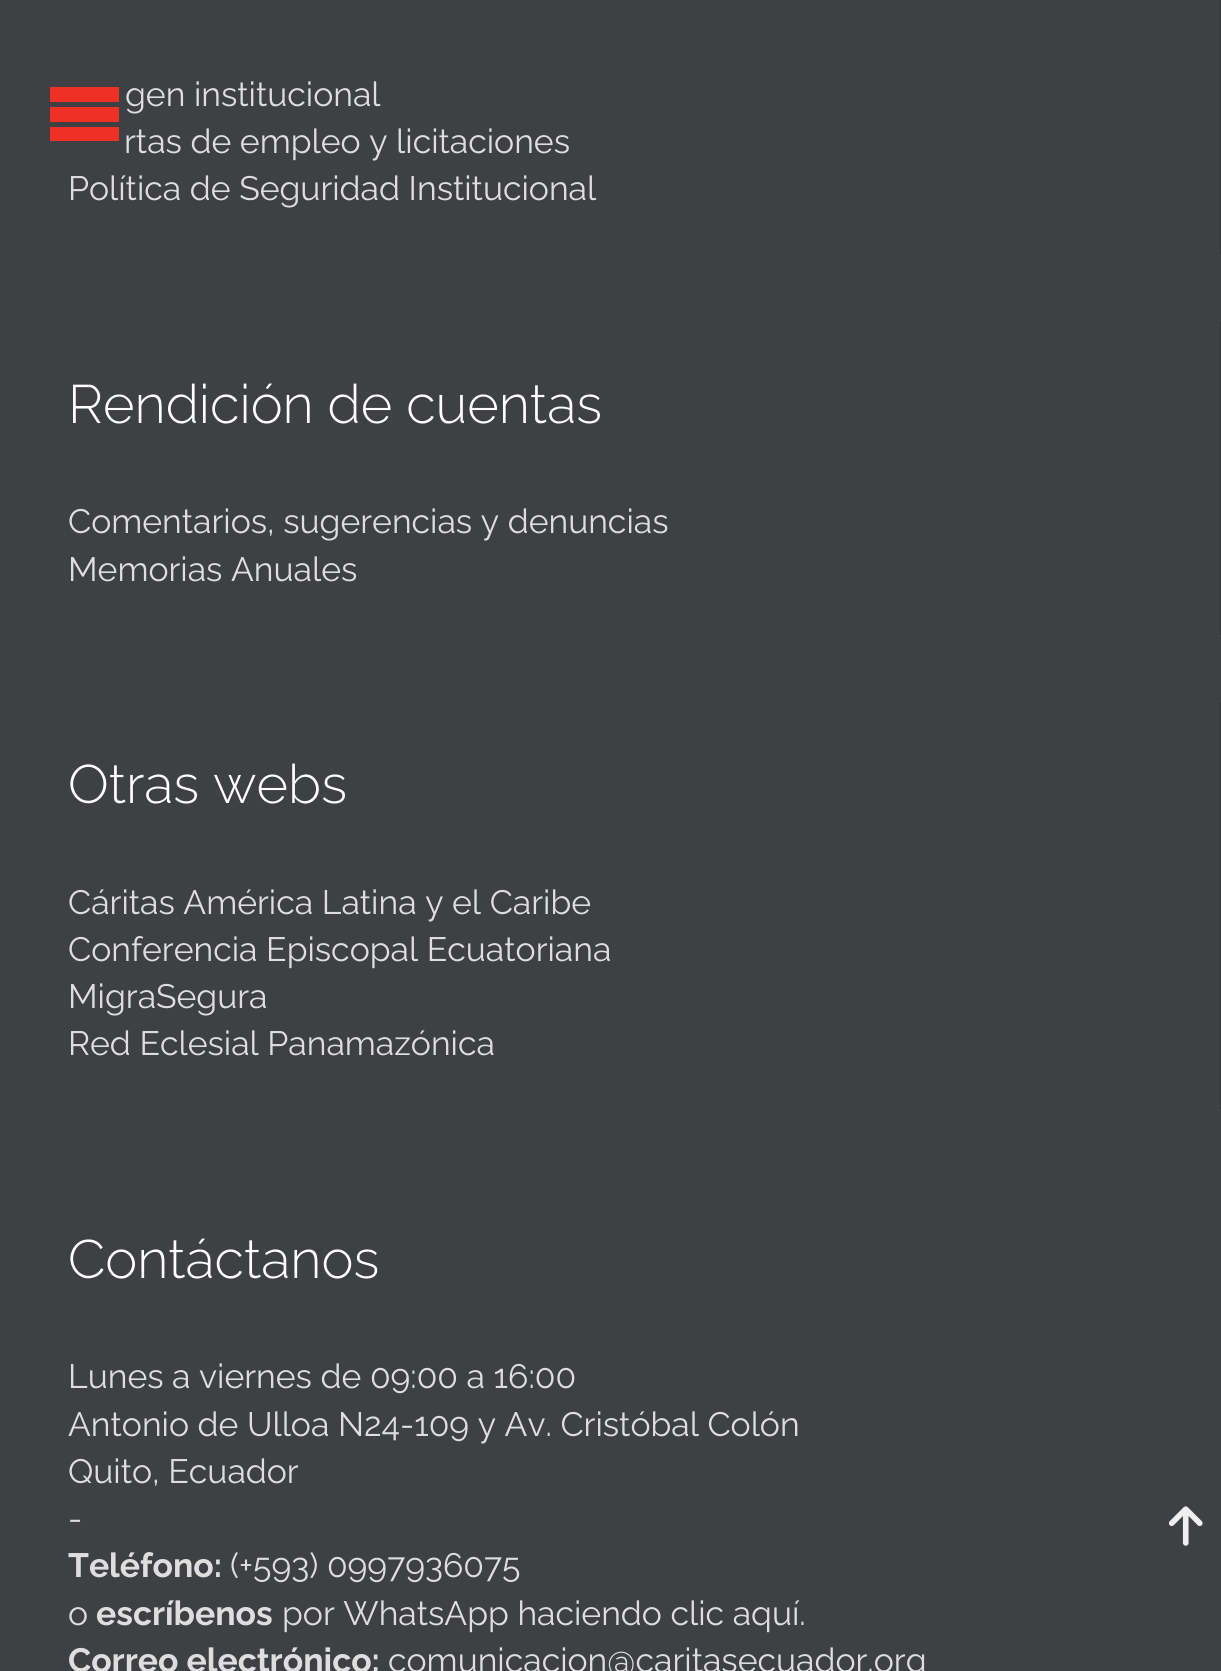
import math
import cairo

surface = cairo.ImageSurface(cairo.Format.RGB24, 1221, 1671)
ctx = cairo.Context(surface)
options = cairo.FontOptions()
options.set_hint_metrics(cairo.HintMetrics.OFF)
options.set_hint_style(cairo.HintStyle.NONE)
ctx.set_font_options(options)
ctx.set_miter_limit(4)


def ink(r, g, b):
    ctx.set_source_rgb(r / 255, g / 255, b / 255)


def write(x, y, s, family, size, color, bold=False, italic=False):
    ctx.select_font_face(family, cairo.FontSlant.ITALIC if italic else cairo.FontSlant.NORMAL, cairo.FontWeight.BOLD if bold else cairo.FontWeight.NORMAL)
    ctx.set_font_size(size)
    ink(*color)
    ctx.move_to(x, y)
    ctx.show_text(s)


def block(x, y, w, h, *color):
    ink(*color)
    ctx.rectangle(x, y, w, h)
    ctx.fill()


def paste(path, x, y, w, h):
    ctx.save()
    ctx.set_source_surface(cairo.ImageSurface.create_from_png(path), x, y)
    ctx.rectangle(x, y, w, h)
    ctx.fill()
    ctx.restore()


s1 = dict(family="Raleway", size=33.75, color=(222, 222, 222))
s2 = dict(family="Raleway Light", size=54, color=(255, 255, 255))
s3 = dict(family="Raleway", size=33.75, color=(222, 222, 222), bold=True)

ink(62, 64, 67)
ctx.paint()
block(1220, 0, 1, 254, 50, 51, 54)
write(125, 106, "gen institucional", **s1)
write(124, 153, "rtas de empleo y licitaciones", **s1)
write(68, 200, "Política de Seguridad Institucional", **s1)
block(1220, 322, 1, 313, 50, 51, 54)
write(68, 423, "Rendición de cuentas", **s2)
write(68, 533, "Comentarios, sugerencias y denuncias", **s1)
write(68, 581, "Memorias Anuales", **s1)
block(1220, 702, 1, 407, 50, 51, 54)
write(68, 803, "Otras webs", **s2)
write(68, 914, "Cáritas América Latina y el Caribe", **s1)
write(68, 961, "Conferencia Episcopal Ecuatoriana", **s1)
write(68, 1008, "MigraSegura", **s1)
write(68, 1055, "Red Eclesial Panamazónica", **s1)
write(68, 1278, "Contáctanos", **s2)
write(68, 1388, "Lunes a viernes de 09:00 a 16:00", **s1)
write(68, 1436, "Antonio de Ulloa N24-109 y Av. Cristóbal Colón", **s1)
write(68, 1483, "Quito, Ecuador", **s1)
write(68, 1530, "-", **s1)
write(68, 1577, "Teléfono:", **s3)
write(230, 1577, "(+593) 0997936075", **s1)
write(68, 1625, "o", **s1)
write(96, 1625, "escríbenos", **s3)
write(282, 1625, "por WhatsApp haciendo clic aquí.", **s1)
write(68, 1672, "Correo electrónico:", **s3)
write(388, 1672, "comunicacion@caritasecuador.org", **s1)
ink(238, 49, 36)
ctx.new_path()
ctx.move_to(50, 87)
ctx.line_to(119, 87)
ctx.line_to(119, 102)
ctx.line_to(50, 102)
ctx.close_path()
ctx.move_to(50, 107)
ctx.line_to(119, 107)
ctx.line_to(119, 122)
ctx.line_to(50, 122)
ctx.close_path()
ctx.move_to(50, 127)
ctx.line_to(119, 127)
ctx.line_to(119, 141)
ctx.line_to(50, 141)
ctx.close_path()
ctx.fill()
paste("pic1.png", 1168, 1506, 35, 40)
surface.write_to_png("screenshot.png")
